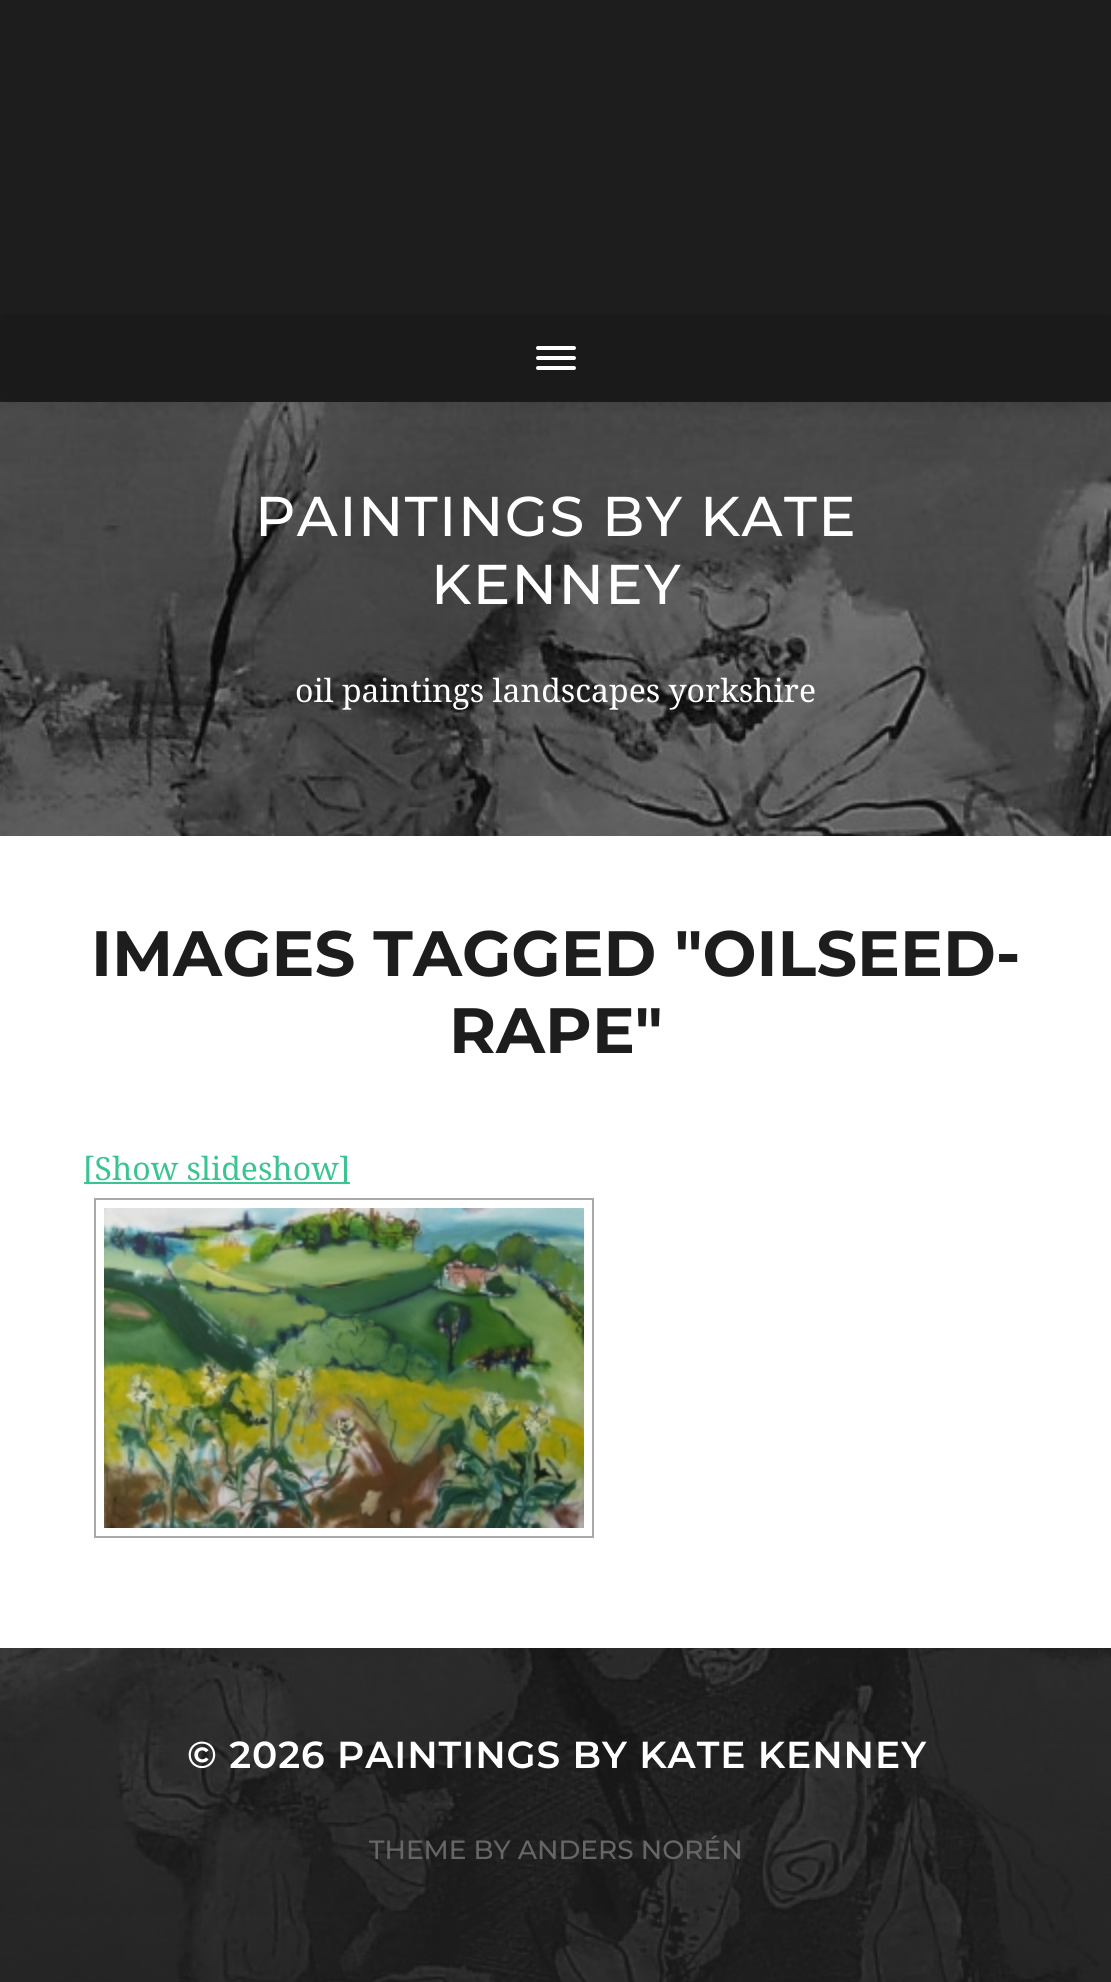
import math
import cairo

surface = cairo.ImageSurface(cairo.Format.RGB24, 1111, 1982)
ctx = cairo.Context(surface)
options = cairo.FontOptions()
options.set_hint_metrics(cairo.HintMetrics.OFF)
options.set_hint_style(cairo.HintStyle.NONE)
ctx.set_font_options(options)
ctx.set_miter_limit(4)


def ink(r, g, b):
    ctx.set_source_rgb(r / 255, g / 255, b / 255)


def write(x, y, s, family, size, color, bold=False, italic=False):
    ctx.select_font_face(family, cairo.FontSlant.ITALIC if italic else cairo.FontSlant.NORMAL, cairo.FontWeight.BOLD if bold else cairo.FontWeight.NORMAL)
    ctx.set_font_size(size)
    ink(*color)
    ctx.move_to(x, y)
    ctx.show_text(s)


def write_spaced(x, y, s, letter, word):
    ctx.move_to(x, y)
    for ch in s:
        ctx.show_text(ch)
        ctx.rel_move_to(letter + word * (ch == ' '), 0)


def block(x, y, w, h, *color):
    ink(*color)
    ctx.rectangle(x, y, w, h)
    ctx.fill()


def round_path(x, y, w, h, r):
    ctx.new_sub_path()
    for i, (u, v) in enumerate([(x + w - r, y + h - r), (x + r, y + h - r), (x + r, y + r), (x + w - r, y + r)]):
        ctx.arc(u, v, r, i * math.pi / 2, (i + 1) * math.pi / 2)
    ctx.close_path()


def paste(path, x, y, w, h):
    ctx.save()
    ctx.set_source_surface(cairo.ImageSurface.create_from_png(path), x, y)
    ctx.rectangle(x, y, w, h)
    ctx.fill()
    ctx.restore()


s1 = dict(family="Droid Serif", size=32, color=(255, 255, 255))
s2 = dict(family="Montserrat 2 Thin", size=64, color=(29, 29, 29))
s3 = dict(family="Droid Serif", size=32, color=(59, 196, 146))
s4 = dict(family="Montserrat Thin", size=26.4, color=(102, 102, 102))

ink(29, 29, 29)
ctx.paint()
ink(26, 26, 26)
round_path(0, 314, 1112, 88, 6)
ctx.fill()
ink(255, 255, 255)
round_path(536, 346, 40, 4, 2)
ctx.fill()
round_path(536, 356, 40, 4, 2)
ctx.fill()
round_path(536, 366, 40, 4, 2)
ctx.fill()
paste("pic1.png", 0, 402, 1111, 1580)
ctx.select_font_face("Montserrat Thin")
ctx.set_font_size(56)
write_spaced(255, 536, "PAINTINGS BY KATE", 1.4, 0)
write_spaced(431, 604, "KENNEY", 1.4, 0)
write(295, 702, "oil paintings landscapes yorkshire", **s1)
block(0, 836, 1111, 812, 255, 255, 255)
write(91, 976, "IMAGES TAGGED \"OILSEED-", **s2)
write(449, 1053, "RAPE\"", **s2)
block(84, 1182, 266, 2, 59, 196, 146)
write(83, 1180, "[Show slideshow]", **s3)
ctx.rectangle(95, 1199, 498, 338)
ink(169, 169, 169)
ctx.stroke()
paste("pic2.png", 104, 1208, 480, 320)
ctx.select_font_face("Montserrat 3 Thin")
ctx.set_font_size(37.6)
ink(255, 255, 255)
write_spaced(187, 1768, "© 2026 PAINTINGS BY KATE KENNEY", 0.95, 0)
write(369, 1859, "THEME BY ANDERS NORÉN", **s4)
surface.write_to_png("screenshot.png")
